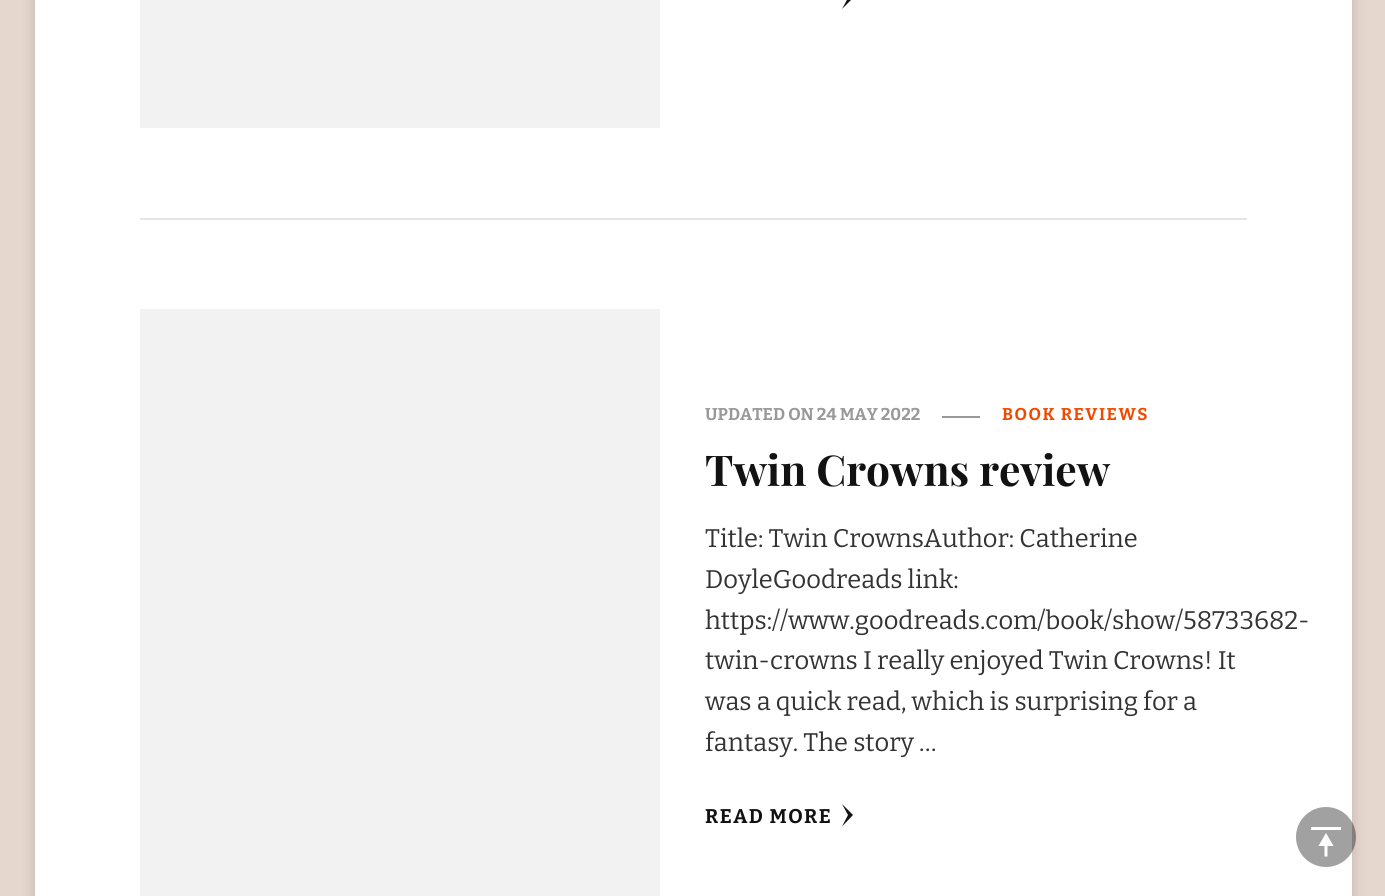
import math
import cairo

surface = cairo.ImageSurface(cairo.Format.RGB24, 1385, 896)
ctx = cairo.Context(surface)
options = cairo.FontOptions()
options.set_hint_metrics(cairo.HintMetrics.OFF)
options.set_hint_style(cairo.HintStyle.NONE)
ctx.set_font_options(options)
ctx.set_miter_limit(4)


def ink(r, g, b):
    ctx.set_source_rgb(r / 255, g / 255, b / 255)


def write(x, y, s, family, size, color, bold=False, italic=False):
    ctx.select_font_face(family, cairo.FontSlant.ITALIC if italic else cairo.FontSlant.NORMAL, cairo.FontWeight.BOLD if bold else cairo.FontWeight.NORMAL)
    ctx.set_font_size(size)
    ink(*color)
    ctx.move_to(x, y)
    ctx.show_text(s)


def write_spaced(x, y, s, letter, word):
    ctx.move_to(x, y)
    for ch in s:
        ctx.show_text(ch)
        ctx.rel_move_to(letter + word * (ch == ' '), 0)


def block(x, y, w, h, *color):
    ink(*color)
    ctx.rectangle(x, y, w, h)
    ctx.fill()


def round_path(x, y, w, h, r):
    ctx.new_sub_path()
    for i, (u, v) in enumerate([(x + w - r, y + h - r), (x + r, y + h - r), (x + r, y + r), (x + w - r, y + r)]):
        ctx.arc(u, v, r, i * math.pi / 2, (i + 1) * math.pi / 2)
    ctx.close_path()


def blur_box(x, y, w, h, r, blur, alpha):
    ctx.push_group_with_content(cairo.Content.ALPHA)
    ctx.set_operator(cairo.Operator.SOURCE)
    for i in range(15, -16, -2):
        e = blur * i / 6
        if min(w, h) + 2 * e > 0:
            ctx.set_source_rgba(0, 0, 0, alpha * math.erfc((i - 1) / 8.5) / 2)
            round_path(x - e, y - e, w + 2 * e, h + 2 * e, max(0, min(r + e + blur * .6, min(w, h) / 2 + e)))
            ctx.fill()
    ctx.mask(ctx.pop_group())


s1 = dict(family="Bitter", size=17, color=(153, 153, 153), bold=True)
s2 = dict(family="Playfair Display", size=42.5, color=(18, 18, 18), bold=True)
s3 = dict(family="Bitter", size=25.5, color=(51, 51, 51))

ink(229, 214, 206)
ctx.paint()
ink(0, 0, 0)
blur_box(35, -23, 1317, 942, 0, 7.5, 0.16)
block(35, 0, 1317, 896, 255, 255, 255)
block(140, 218, 1107, 2, 230, 230, 230)
block(140, 0, 520, 128, 242, 242, 242)
ink(18, 18, 18)
ctx.new_path()
ctx.move_to(853, -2)
ctx.line_to(842, 9)
ctx.line_to(848, -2)
ctx.line_to(842, -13.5)
ctx.close_path()
ctx.fill()
block(140, 309, 520, 587, 242, 242, 242)
write(705, 420, "UPDATED ON 24 MAY 2022", **s1)
block(942, 416, 38, 2, 153, 153, 153)
ink(239, 75, 0)
write_spaced(1002, 420, "BOOK REVIEWS", 1.5, 0)
write(705, 486, "Twin Crowns review", **s2)
write(705, 547, "Title: Twin CrownsAuthor: Catherine", **s3)
write(705, 588, "DoyleGoodreads link:", **s3)
write(705, 629, "https://www.goodreads.com/book/show/58733682-", **s3)
write(705, 669, "twin-crowns I really enjoyed Twin Crowns! It", **s3)
write(705, 710, "was a quick read, which is surprising for a", **s3)
write(705, 751, "fantasy. The story …", **s3)
ctx.select_font_face("Bitter", cairo.FontSlant.NORMAL, cairo.FontWeight.BOLD)
ctx.set_font_size(19.75)
ink(18, 18, 18)
write_spaced(705, 823, "READ MORE", 1.5, 0)
ctx.new_path()
ctx.move_to(853, 815)
ctx.line_to(842, 826.5)
ctx.line_to(848, 815)
ctx.line_to(842, 804)
ctx.close_path()
ctx.fill()
ctx.set_source_rgba(0, 0, 0, 0.37)
ctx.arc(1326, 837, 30, 0, 2 * math.pi)
ctx.fill()
block(1311, 827, 30, 3, 255, 255, 255)
ctx.new_path()
ctx.move_to(1333.5, 846)
ctx.line_to(1326, 833)
ctx.line_to(1318.5, 846)
ctx.line_to(1324.5, 846)
ctx.line_to(1324.5, 856.5)
ctx.line_to(1327.5, 856.5)
ctx.line_to(1327.5, 846)
ctx.close_path()
ctx.fill()
surface.write_to_png("screenshot.png")
